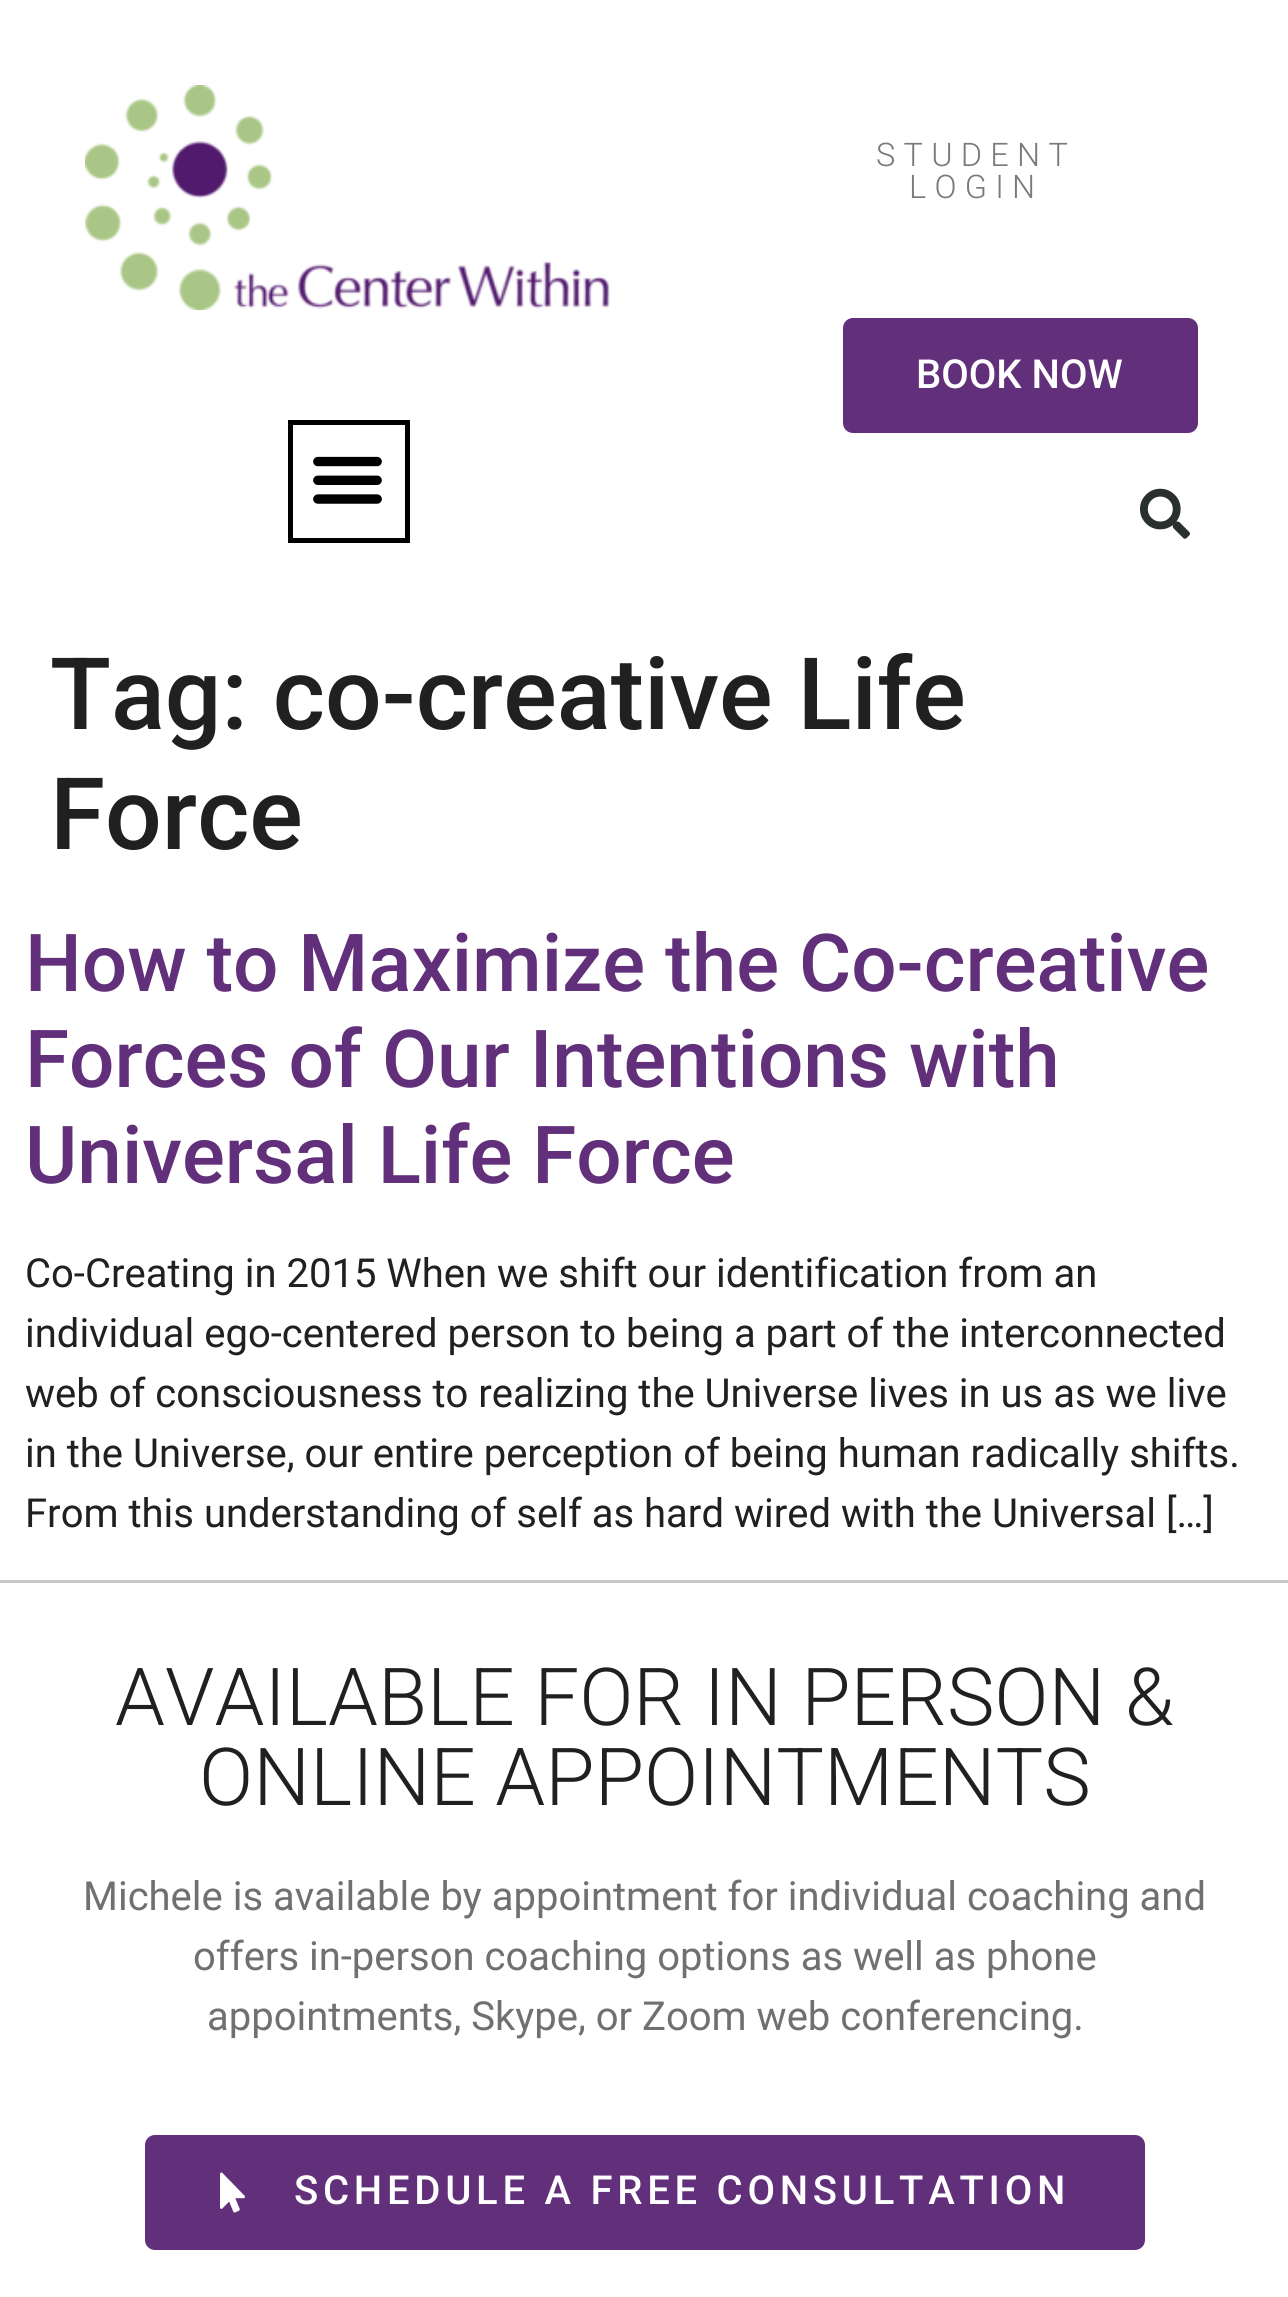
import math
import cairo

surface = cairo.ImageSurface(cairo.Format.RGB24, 1288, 2297)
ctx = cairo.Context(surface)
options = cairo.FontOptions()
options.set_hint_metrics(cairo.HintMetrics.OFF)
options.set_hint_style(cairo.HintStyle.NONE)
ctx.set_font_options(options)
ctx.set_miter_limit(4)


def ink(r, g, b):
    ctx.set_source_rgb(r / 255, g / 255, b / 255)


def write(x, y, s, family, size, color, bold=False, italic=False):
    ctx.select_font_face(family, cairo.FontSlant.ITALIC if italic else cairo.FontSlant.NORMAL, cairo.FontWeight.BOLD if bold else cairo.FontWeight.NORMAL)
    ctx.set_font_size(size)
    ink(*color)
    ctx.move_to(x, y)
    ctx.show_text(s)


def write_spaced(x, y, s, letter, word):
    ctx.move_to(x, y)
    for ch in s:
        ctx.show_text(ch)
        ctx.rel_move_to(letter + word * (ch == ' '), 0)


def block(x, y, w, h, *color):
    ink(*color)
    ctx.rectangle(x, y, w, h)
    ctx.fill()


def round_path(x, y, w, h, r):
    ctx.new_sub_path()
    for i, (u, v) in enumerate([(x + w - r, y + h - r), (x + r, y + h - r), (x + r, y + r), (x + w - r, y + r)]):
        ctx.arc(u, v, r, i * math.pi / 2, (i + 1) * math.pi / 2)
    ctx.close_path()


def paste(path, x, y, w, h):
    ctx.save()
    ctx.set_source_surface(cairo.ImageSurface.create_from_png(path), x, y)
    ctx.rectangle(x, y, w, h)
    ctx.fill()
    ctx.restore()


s1 = dict(family="Roboto Medium", size=40, color=(255, 255, 255))
s2 = dict(family="Roboto Medium", size=100, color=(32, 32, 32))
s3 = dict(family="Roboto Medium", size=80, color=(98, 48, 122))
s4 = dict(family="Roboto", size=40, color=(32, 32, 32))
s5 = dict(family="Roboto Light", size=80, color=(32, 32, 32))
s6 = dict(family="Roboto", size=40, color=(112, 112, 112))

ink(255, 255, 255)
ctx.paint()
paste("pic1.png", 85, 85, 525, 225)
ctx.rectangle(290.5, 422.5, 117, 118)
ink(0, 0, 0)
ctx.set_line_width(5)
ctx.stroke()
paste("pic2.png", 313, 456, 69, 48)
ctx.select_font_face("Roboto Light")
ctx.set_font_size(32.5)
ink(122, 122, 122)
write_spaced(876, 166, "STUDENT", 8.25, 0)
write_spaced(909, 198, "LOGIN", 8.25, 0)
ink(98, 48, 122)
round_path(843, 318, 355, 115, 10)
ctx.fill()
write(916, 388, "BOOK NOW", **s1)
paste("pic3.png", 1140, 488, 50, 51)
write(50, 729, "Tag: co-creative Life", **s2)
write(50, 849, "Force", **s2)
write(25, 991, "How to Maximize the Co-creative", **s3)
write(25, 1087, "Forces of Our Intentions with", **s3)
write(25, 1183, "Universal Life Force", **s3)
write(25, 1287, "Co-Creating in 2015 When we shift our identification from an", **s4)
write(25, 1347, "individual ego-centered person to being a part of the interconnected", **s4)
write(25, 1407, "web of consciousness to realizing the Universe lives in us as we live", **s4)
write(25, 1467, "in the Universe, our entire perception of being human radically shifts.", **s4)
write(25, 1527, "From this understanding of self as hard wired with the Universal […]", **s4)
block(0, 1580, 1288, 3, 200, 200, 200)
write(115, 1725, "AVAILABLE FOR IN PERSON &", **s5)
write(199, 1805, "ONLINE APPOINTMENTS", **s5)
write(83, 1910, "Michele is available by appointment for individual coaching and", **s6)
write(193, 1970, "offers in-person coaching options as well as phone", **s6)
write(207, 2030, "appointments, Skype, or Zoom web conferencing.", **s6)
ink(98, 48, 122)
round_path(145, 2135, 1000, 115, 10)
ctx.fill()
paste("pic4.png", 220, 2172, 25, 41)
ctx.select_font_face("Roboto Medium")
ink(255, 255, 255)
write_spaced(294, 2204, "SCHEDULE A FREE CONSULTATION", 4.75, 0)
surface.write_to_png("screenshot.png")
